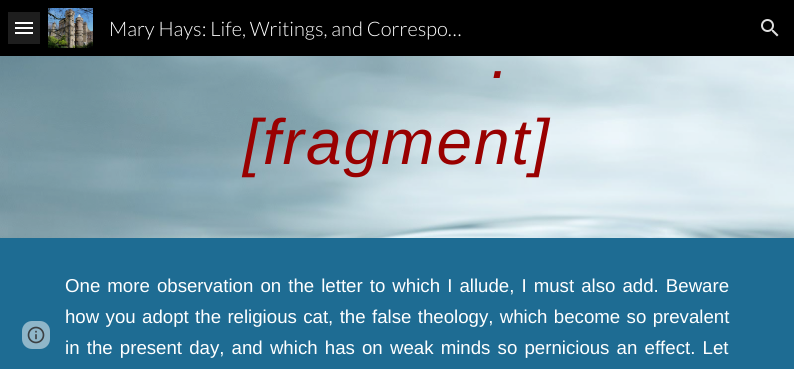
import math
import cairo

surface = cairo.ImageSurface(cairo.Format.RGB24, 794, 369)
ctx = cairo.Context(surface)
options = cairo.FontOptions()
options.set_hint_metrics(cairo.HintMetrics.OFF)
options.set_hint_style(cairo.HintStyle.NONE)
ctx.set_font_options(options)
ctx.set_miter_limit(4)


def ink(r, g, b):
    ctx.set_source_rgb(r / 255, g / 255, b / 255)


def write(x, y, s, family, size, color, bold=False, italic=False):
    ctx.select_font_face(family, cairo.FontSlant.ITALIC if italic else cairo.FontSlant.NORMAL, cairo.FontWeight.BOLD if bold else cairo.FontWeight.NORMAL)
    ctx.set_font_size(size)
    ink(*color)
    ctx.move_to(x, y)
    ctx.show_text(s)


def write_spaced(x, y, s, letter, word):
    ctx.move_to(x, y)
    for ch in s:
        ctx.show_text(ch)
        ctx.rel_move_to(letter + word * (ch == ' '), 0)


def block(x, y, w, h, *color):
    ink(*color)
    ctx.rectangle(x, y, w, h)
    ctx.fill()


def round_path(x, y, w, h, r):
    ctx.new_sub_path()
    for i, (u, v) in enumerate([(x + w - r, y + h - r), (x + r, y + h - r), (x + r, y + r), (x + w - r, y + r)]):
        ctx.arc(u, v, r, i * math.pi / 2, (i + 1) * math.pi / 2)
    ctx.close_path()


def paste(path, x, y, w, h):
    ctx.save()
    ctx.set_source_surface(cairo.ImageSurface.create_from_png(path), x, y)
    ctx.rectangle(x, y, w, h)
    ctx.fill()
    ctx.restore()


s1 = dict(family="Lato Light", size=20, color=(255, 255, 255))

ink(255, 255, 255)
ctx.paint()
block(0, 0, 794, 56, 0, 0, 0)
block(15, 22, 18, 2, 255, 255, 255)
block(15, 27, 18, 2, 255, 255, 255)
block(15, 32, 18, 2, 255, 255, 255)
ctx.set_source_rgba(1, 1, 1, 0.12)
ctx.rectangle(8, 12, 32, 32)
ctx.fill()
paste("pic1.png", 48, 8, 45, 40)
write(109, 36, "Mary Hays: Life, Writings, and Correspo…", **s1)
paste("pic2.png", 761, 19, 18, 18)
block(0, 238, 794, 131, 30, 108, 147)
ink(143, 182, 201)
round_path(22, 321, 28, 28, 10)
ctx.fill()
paste("pic3.png", 27, 326, 18, 18)
paste("pic4.png", 0, 56, 794, 182)
ctx.select_font_face("Liberation Sans", cairo.FontSlant.ITALIC)
ctx.set_font_size(64)
ink(153, 0, 0)
write_spaced(491, 78, ".", 2, 0)
write_spaced(243, 164, "[fragment]", 2, 0)
ctx.select_font_face("Liberation Sans")
ctx.set_font_size(18.65)
ink(255, 255, 255)
write_spaced(65, 292, "One more observation on the letter to which I allude, I must also add. Beware", 0, 1.9)
write_spaced(65, 323, "how you adopt the religious cat, the false theology, which become so prevalent", 0, 1.2)
write_spaced(65, 354, "in the present day, and which has on weak minds so pernicious an effect. Let", 0, 2)
surface.write_to_png("screenshot.png")
